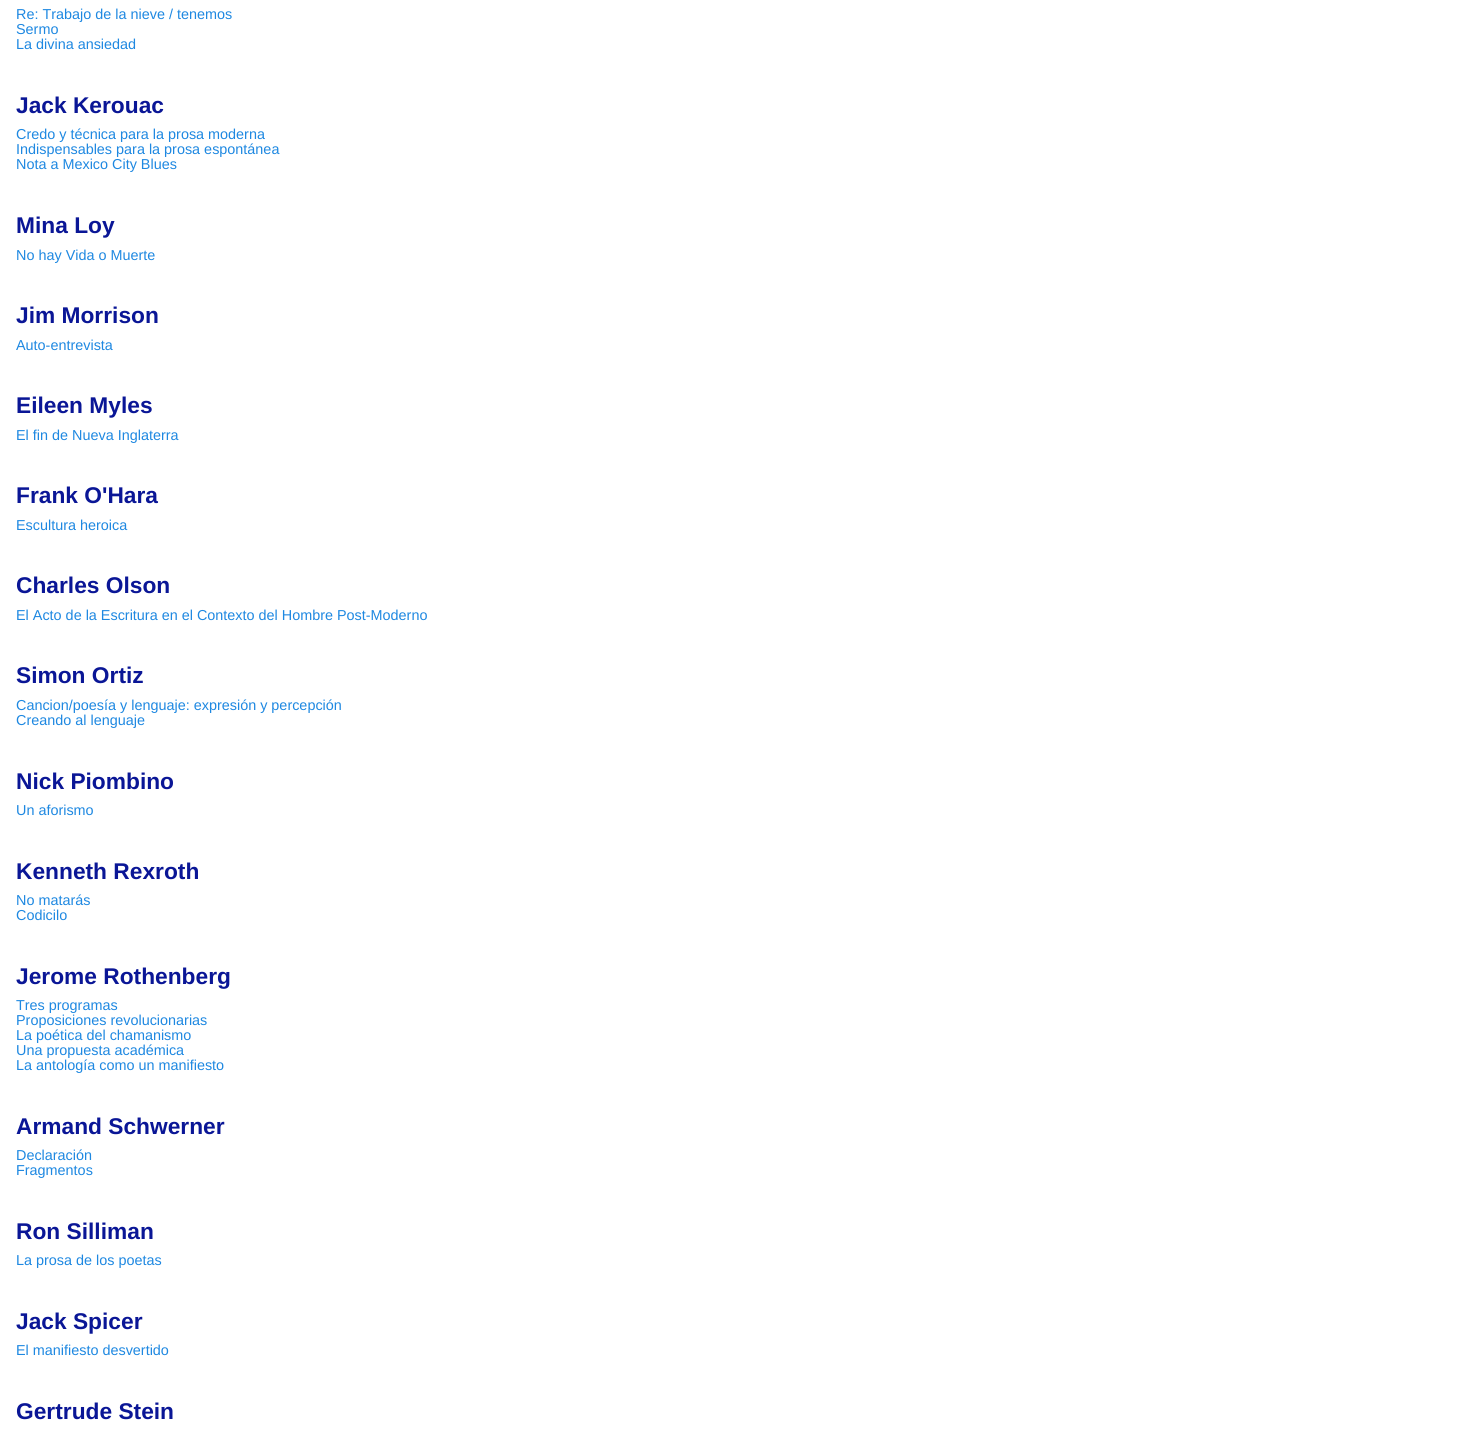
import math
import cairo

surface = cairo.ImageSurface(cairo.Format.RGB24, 1469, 1438)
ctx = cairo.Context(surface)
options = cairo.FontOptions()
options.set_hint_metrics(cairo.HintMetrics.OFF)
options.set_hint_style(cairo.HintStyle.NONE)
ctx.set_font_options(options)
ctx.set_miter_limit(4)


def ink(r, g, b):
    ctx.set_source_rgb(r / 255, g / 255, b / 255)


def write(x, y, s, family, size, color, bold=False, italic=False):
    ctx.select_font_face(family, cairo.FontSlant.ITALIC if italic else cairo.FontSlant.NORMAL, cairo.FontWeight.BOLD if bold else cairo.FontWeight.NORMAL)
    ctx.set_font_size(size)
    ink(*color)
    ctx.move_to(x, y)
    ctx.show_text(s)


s1 = dict(family="Liberation Sans", size=14.4, color=(30, 136, 225))
s2 = dict(family="Liberation Sans", size=22.75, color=(10, 22, 150), bold=True)

ink(255, 255, 255)
ctx.paint()
write(16, 19, "Re: Trabajo de la nieve / tenemos", **s1)
write(16, 34, "Sermo", **s1)
write(16, 49, "La divina ansiedad", **s1)
write(16, 113, "Jack Kerouac", **s2)
write(16, 139, "Credo y técnica para la prosa moderna", **s1)
write(16, 154, "Indispensables para la prosa espontánea", **s1)
write(16, 169, "Nota a Mexico City Blues", **s1)
write(16, 233, "Mina Loy", **s2)
write(16, 260, "No hay Vida o Muerte", **s1)
write(16, 323, "Jim Morrison", **s2)
write(16, 350, "Auto-entrevista", **s1)
write(16, 413, "Eileen Myles", **s2)
write(16, 440, "El fin de Nueva Inglaterra", **s1)
write(16, 503, "Frank O'Hara", **s2)
write(16, 530, "Escultura heroica", **s1)
write(16, 593, "Charles Olson", **s2)
write(16, 620, "El Acto de la Escritura en el Contexto del Hombre Post-Moderno", **s1)
write(16, 683, "Simon Ortiz", **s2)
write(16, 710, "Cancion/poesía y lenguaje: expresión y percepción", **s1)
write(16, 725, "Creando al lenguaje", **s1)
write(16, 789, "Nick Piombino", **s2)
write(16, 815, "Un aforismo", **s1)
write(16, 879, "Kenneth Rexroth", **s2)
write(16, 905, "No matarás", **s1)
write(16, 920, "Codicilo", **s1)
write(16, 984, "Jerome Rothenberg", **s2)
write(16, 1010, "Tres programas", **s1)
write(16, 1025, "Proposiciones revolucionarias", **s1)
write(16, 1040, "La poética del chamanismo", **s1)
write(16, 1055, "Una propuesta académica", **s1)
write(16, 1070, "La antología como un manifiesto", **s1)
write(16, 1134, "Armand Schwerner", **s2)
write(16, 1160, "Declaración", **s1)
write(16, 1175, "Fragmentos", **s1)
write(16, 1239, "Ron Silliman", **s2)
write(16, 1265, "La prosa de los poetas", **s1)
write(16, 1329, "Jack Spicer", **s2)
write(16, 1355, "El manifiesto desvertido", **s1)
write(16, 1419, "Gertrude Stein", **s2)
surface.write_to_png("screenshot.png")
